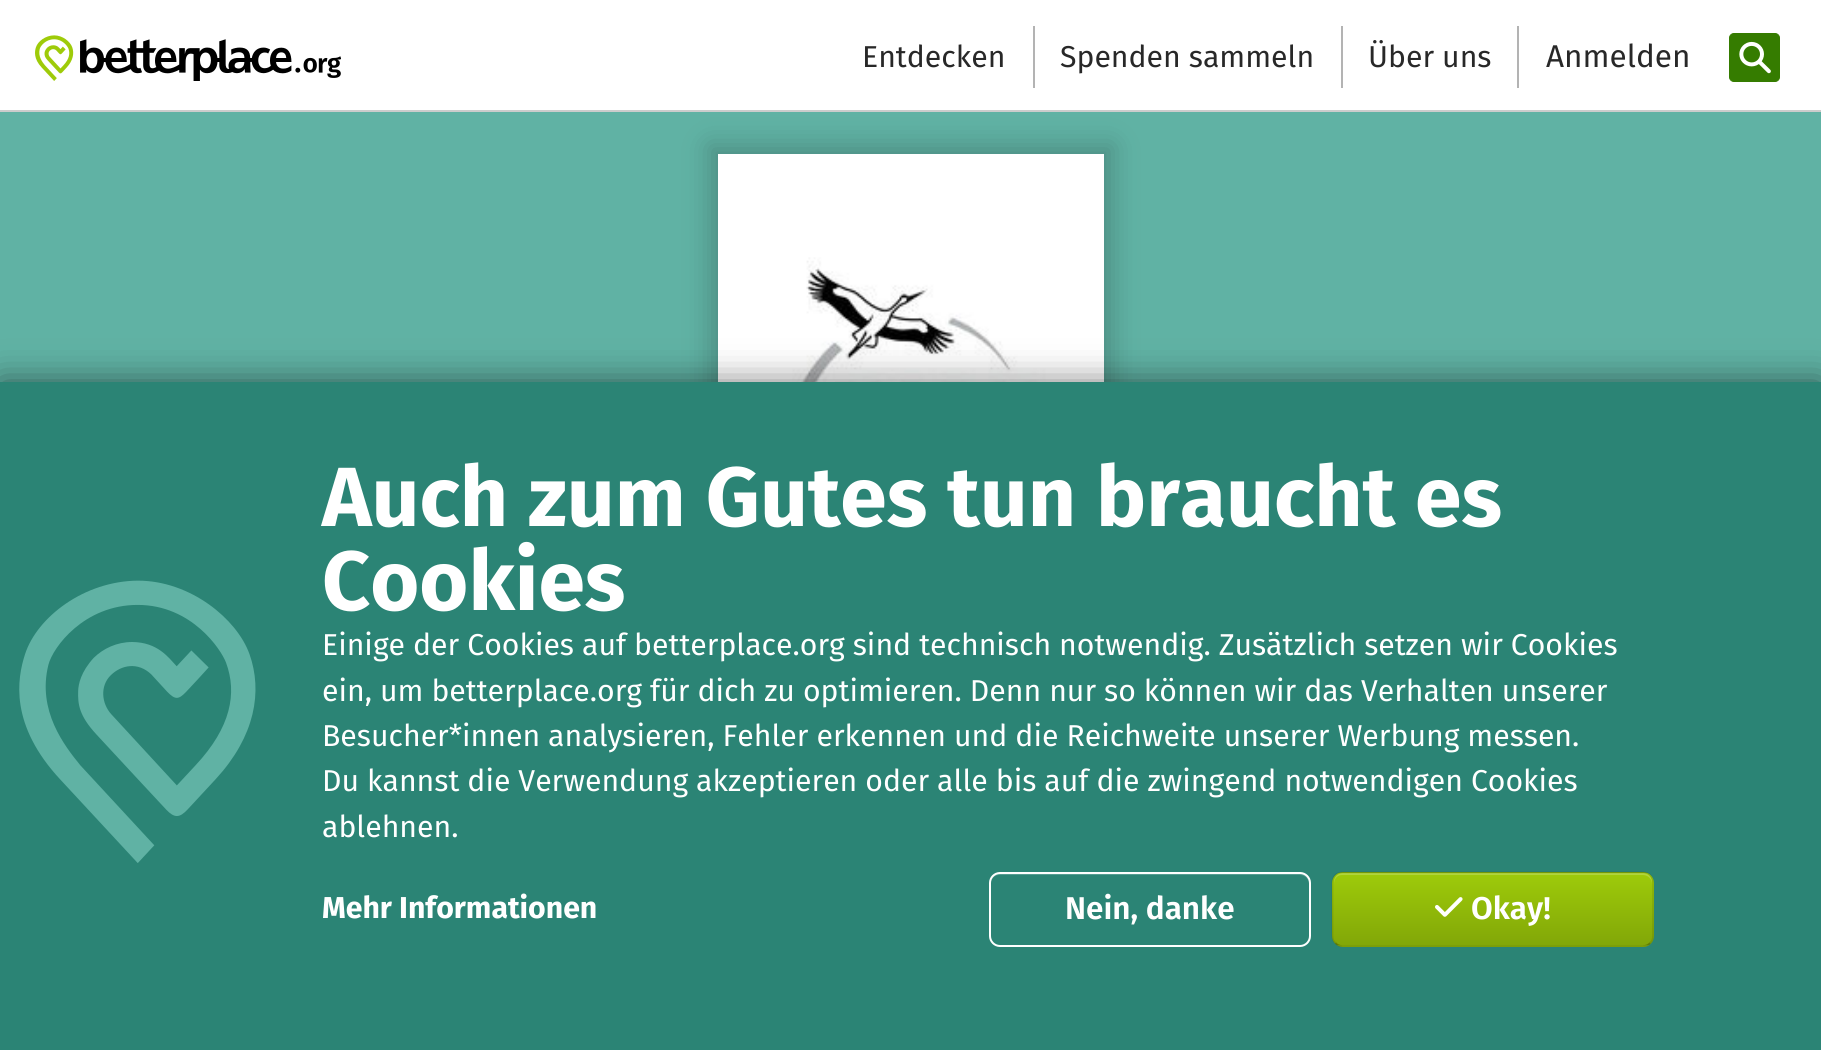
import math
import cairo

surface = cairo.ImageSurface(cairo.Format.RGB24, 1821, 1050)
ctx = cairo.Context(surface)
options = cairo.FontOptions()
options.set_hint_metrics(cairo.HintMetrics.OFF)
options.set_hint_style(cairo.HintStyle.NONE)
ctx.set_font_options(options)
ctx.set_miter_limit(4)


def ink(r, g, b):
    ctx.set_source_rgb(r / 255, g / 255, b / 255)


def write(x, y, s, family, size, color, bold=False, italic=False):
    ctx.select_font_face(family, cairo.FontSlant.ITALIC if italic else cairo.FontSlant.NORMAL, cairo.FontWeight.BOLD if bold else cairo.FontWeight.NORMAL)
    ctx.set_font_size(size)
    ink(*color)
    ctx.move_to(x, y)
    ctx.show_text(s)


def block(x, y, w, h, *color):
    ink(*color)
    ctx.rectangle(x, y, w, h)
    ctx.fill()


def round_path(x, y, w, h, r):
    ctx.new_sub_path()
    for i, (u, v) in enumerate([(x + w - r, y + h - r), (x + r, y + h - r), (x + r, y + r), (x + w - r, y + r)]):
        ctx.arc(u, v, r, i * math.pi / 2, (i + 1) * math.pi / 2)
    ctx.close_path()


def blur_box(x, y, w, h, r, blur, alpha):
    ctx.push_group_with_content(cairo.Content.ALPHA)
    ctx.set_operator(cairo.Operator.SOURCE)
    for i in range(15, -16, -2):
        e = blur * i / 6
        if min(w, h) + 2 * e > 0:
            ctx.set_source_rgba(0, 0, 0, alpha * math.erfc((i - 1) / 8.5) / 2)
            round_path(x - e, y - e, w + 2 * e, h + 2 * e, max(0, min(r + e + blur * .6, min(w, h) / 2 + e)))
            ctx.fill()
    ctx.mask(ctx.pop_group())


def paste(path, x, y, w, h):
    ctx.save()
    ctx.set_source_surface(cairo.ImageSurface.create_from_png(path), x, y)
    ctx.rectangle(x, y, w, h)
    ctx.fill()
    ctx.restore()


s1 = dict(family="Fira Sans", size=30.2, color=(40, 40, 40))
s2 = dict(family="Fira Sans", size=31.5, color=(40, 40, 40))
s3 = dict(family="Fira Sans", size=84, color=(255, 255, 255), bold=True)
s4 = dict(family="Fira Sans", size=30.2, color=(255, 255, 255))
s5 = dict(family="Fira Sans", size=30.2, color=(255, 255, 255), bold=True)
s6 = dict(family="Fira Sans SemiBold", size=31.5, color=(255, 255, 255))

ink(255, 255, 255)
ctx.paint()
block(0, 112, 1821, 270, 96, 178, 164)
ink(0, 0, 0)
blur_box(709, 145, 404, 406, 0, 13, 0.2)
block(0, 110, 1821, 2, 204, 204, 204)
paste("pic1.png", 35, 35, 306, 46)
write(862, 67, "Entdecken", **s1)
block(1033, 26, 2, 62, 179, 179, 179)
write(1060, 67, "Spenden sammeln", **s1)
block(1341, 26, 2, 62, 179, 179, 179)
write(1368, 67, "Über uns", **s1)
block(1517, 26, 2, 62, 179, 179, 179)
write(1546, 67, "Anmelden", **s2)
ink(53, 124, 0)
round_path(1729.5, 33.5, 50, 48, 4.5)
ctx.fill_preserve()
ctx.set_line_width(1)
ctx.stroke()
paste("pic2.png", 1739, 41, 32, 33)
block(718, 154, 386, 228, 255, 255, 255)
paste("pic3.png", 736, 257, 351, 125)
ink(0, 0, 0)
blur_box(0, 382, 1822, 668, 0, 17.5, 0.5)
block(0, 382, 1821, 668, 43, 132, 117)
paste("pic4.png", 19, 580, 237, 283)
write(322, 526, "Auch zum Gutes tun braucht es", **s3)
write(322, 610, "Cookies", **s3)
write(322, 655, "Einige der Cookies auf betterplace.org sind technisch notwendig. Zusätzlich setzen wir Cookies", **s4)
write(322, 701, "ein, um betterplace.org für dich zu optimieren. Denn nur so können wir das Verhalten unserer", **s4)
write(322, 746, "Besucher*innen analysieren, Fehler erkennen und die Reichweite unserer Werbung messen.", **s4)
write(322, 791, "Du kannst die Verwendung akzeptieren oder alle bis auf die zwingend notwendigen Cookies", **s4)
write(322, 837, "ablehnen.", **s4)
write(322, 918, "Mehr Informationen", **s5)
ink(85, 157, 145)
ctx.new_path()
ctx.move_to(999, 875)
ctx.line_to(1300, 875)
ctx.curve_to(1305, 875, 1309, 879, 1309, 884)
ctx.line_to(1309, 882)
ctx.curve_to(1309, 877, 1305, 873, 1300, 873)
ctx.line_to(1000, 873)
ctx.curve_to(996, 873, 993, 875, 992, 879)
ctx.curve_to(993, 877, 996, 875, 999, 875)
ctx.close_path()
ctx.fill()
round_path(990, 873, 320, 73, 10)
ink(255, 255, 255)
ctx.set_line_width(2)
ctx.stroke()
write(1065, 919, "Nein, danke", **s6)
ctx.save()
round_path(1332, 872, 322, 75, 11)
ctx.clip()
gradient = cairo.LinearGradient(1493, 802, 1493, 873)
gradient.add_color_stop_rgba(0, 0.62, 0.796, 0.039, 1)
gradient.add_color_stop_rgba(1, 0.51, 0.655, 0.031, 1)
ctx.set_source(gradient)
ctx.rectangle(1332, 872, 322, 1)
ctx.fill()
gradient = cairo.LinearGradient(1493, 873, 1493, 945)
gradient.add_color_stop_rgba(0, 0.62, 0.796, 0.039, 1)
gradient.add_color_stop_rgba(1, 0.51, 0.655, 0.031, 1)
ctx.set_source(gradient)
ctx.rectangle(1332, 873, 322, 72)
ctx.fill()
gradient = cairo.LinearGradient(1493, 945, 1493, 1017)
gradient.add_color_stop_rgba(0, 0.62, 0.796, 0.039, 1)
gradient.add_color_stop_rgba(1, 0.51, 0.655, 0.031, 1)
ctx.set_source(gradient)
ctx.rectangle(1332, 945, 322, 2)
ctx.fill()
ctx.restore()
ctx.set_source_rgba(1, 1, 1, 0.2)
ctx.new_path()
ctx.move_to(1342, 875)
ctx.line_to(1643, 875)
ctx.curve_to(1648, 875, 1652, 879, 1652, 884)
ctx.line_to(1652, 882)
ctx.curve_to(1652, 877, 1648, 873, 1643, 873)
ctx.line_to(1343, 873)
ctx.curve_to(1338, 873, 1334, 877, 1334, 882)
ctx.line_to(1334, 884)
ctx.curve_to(1334, 879, 1337, 875, 1342, 875)
ctx.close_path()
ctx.fill()
ctx.new_path()
ctx.move_to(1650, 943)
ctx.curve_to(1648.5, 945, 1646, 946, 1643, 946)
ctx.line_to(1342, 946)
ctx.curve_to(1339.5, 946, 1337, 945, 1335.5, 943)
ctx.set_source_rgba(0, 0, 0, 0.25)
ctx.set_line_width(1.8)
ctx.stroke()
ctx.new_path()
ctx.move_to(1335.5, 943)
ctx.curve_to(1333.5, 941.5, 1332.5, 939, 1332.5, 936)
ctx.line_to(1332.5, 882)
ctx.curve_to(1332.5, 879.5, 1333.5, 877, 1335.5, 875)
ctx.curve_to(1337, 873.5, 1339.5, 872.5, 1342, 872.5)
ctx.line_to(1643, 872.5)
ctx.curve_to(1646, 872.5, 1648.5, 873.5, 1650, 875)
ctx.curve_to(1652, 877, 1653, 879.5, 1653, 882)
ctx.line_to(1653, 936)
ctx.curve_to(1653, 939, 1652, 941.5, 1650, 943)
ctx.set_source_rgba(0, 0, 0, 0.1)
ctx.stroke()
paste("pic5.png", 1435, 897, 28, 20)
write(1471, 919, "Okay!", **s6)
surface.write_to_png("screenshot.png")
